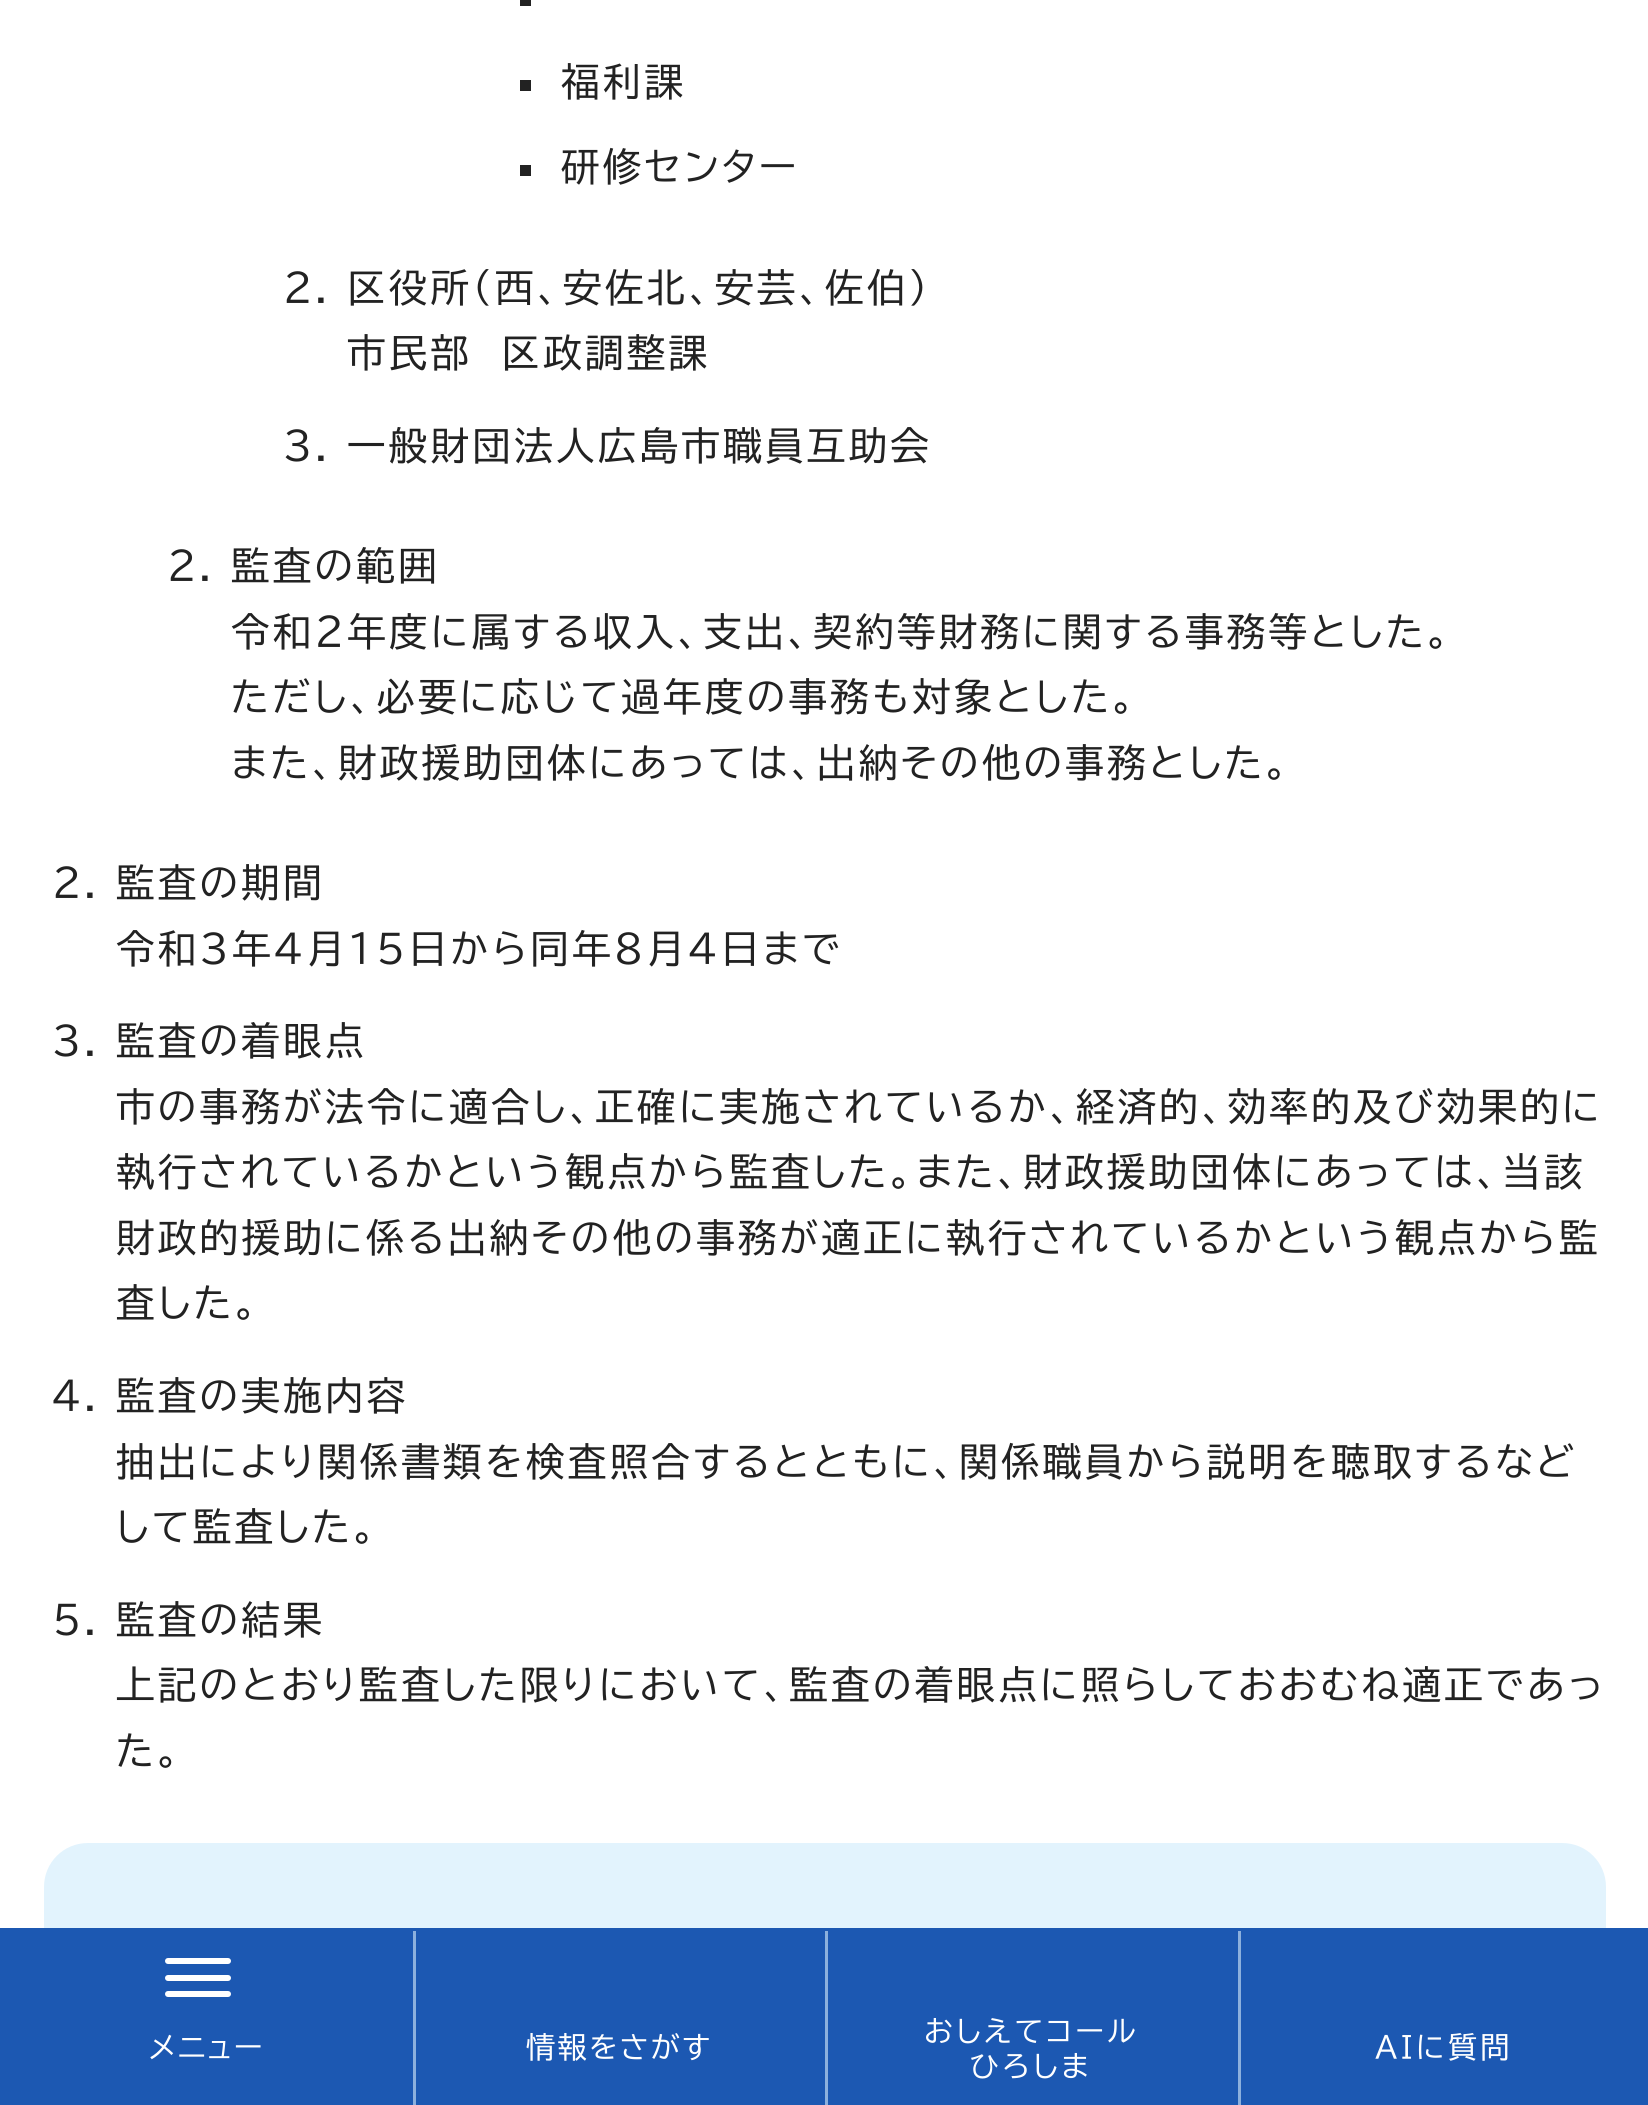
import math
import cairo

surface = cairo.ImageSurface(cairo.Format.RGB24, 1648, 2105)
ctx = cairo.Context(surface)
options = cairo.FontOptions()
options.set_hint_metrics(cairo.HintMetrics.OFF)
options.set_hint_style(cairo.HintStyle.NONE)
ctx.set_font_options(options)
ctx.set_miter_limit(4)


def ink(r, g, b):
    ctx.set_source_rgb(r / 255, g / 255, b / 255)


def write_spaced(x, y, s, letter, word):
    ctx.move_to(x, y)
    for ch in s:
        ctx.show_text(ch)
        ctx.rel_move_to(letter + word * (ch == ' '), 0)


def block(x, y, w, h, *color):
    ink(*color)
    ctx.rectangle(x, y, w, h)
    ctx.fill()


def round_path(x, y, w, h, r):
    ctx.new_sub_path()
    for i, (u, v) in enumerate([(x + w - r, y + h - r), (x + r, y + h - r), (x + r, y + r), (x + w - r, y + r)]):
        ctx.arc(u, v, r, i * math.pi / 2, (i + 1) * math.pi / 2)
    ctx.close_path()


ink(255, 255, 255)
ctx.paint()
block(520, 0, 11, 6, 34, 34, 34)
block(520, 80, 11, 11, 34, 34, 34)
ctx.select_font_face("BIZ UDPGothic")
ctx.set_font_size(38.5)
write_spaced(561, 96, "福利課", 3.3, 0)
block(520, 165, 11, 11, 34, 34, 34)
write_spaced(561, 181, "研修センター", 3.3, 0)
write_spaced(283, 302, "2. 区役所（西、安佐北、安芸、佐伯）", 3.3, 0)
write_spaced(347, 367, "市民部　区政調整課", 3.3, 0)
write_spaced(283, 460, "3. 一般財団法人広島市職員互助会", 3.3, 0)
write_spaced(167, 580, "2. 監査の範囲", 3.3, 0)
write_spaced(231, 646, "令和2年度に属する収入、支出、契約等財務に関する事務等とした。", 3.3, 0)
write_spaced(231, 711, "ただし、必要に応じて過年度の事務も対象とした。", 3.3, 0)
write_spaced(231, 777, "また、財政援助団体にあっては、出納その他の事務とした。", 3.3, 0)
write_spaced(52, 897, "2. 監査の期間", 3.3, 0)
write_spaced(116, 963, "令和3年4月15日から同年8月4日まで", 3.3, 0)
write_spaced(52, 1055, "3. 監査の着眼点", 3.3, 0)
write_spaced(116, 1121, "市の事務が法令に適合し、正確に実施されているか、経済的、効率的及び効果的に", 3.3, 0)
write_spaced(116, 1186, "執行されているかという観点から監査した。また、財政援助団体にあっては、当該", 3.3, 0)
write_spaced(116, 1252, "財政的援助に係る出納その他の事務が適正に執行されているかという観点から監", 3.3, 0)
write_spaced(116, 1317, "査した。", 3.3, 0)
write_spaced(52, 1410, "4. 監査の実施内容", 3.3, 0)
write_spaced(116, 1476, "抽出により関係書類を検査照合するとともに、関係職員から説明を聴取するなど", 3.3, 0)
write_spaced(116, 1541, "して監査した。", 3.3, 0)
write_spaced(52, 1634, "5. 監査の結果", 3.3, 0)
write_spaced(116, 1699, "上記のとおり監査した限りにおいて、監査の着眼点に照らしておおむね適正であっ", 3.3, 0)
write_spaced(116, 1765, "た。", 3.3, 0)
ink(226, 243, 253)
ctx.new_path()
ctx.move_to(88, 1843)
ctx.line_to(1562, 1843)
ctx.curve_to(1586.5, 1843, 1606, 1862.5, 1606, 1887)
ctx.line_to(1606, 2030)
ctx.line_to(44, 2030)
ctx.line_to(44, 1887)
ctx.curve_to(44, 1862.5, 63.5, 1843, 88, 1843)
ctx.close_path()
ctx.fill()
block(0, 1928, 1648, 3, 28, 88, 178)
block(0, 1931, 413, 174, 28, 88, 178)
ink(255, 255, 255)
round_path(165, 1975, 66, 6, 3)
ctx.fill()
round_path(165, 1958, 66, 6, 3)
ctx.fill()
round_path(165, 1991, 66, 6, 3)
ctx.fill()
ctx.set_font_size(29.25)
write_spaced(149, 2058, "メニュー", 2.25, 0)
block(413, 1931, 3, 174, 140, 176, 221)
block(416, 1931, 409, 174, 28, 88, 178)
ink(255, 255, 255)
write_spaced(526, 2058, "情報をさがす", 2.25, 0)
block(825, 1931, 3, 174, 140, 176, 221)
block(828, 1931, 410, 174, 28, 88, 178)
ink(255, 255, 255)
write_spaced(924, 2042, "おしえてコール", 3.3, 0)
write_spaced(970, 2077, "ひろしま", 3.3, 0)
block(1238, 1931, 3, 174, 140, 176, 221)
block(1241, 1931, 407, 174, 28, 88, 178)
ink(255, 255, 255)
write_spaced(1375, 2058, "AIに質問", 3.3, 0)
surface.write_to_png("screenshot.png")
